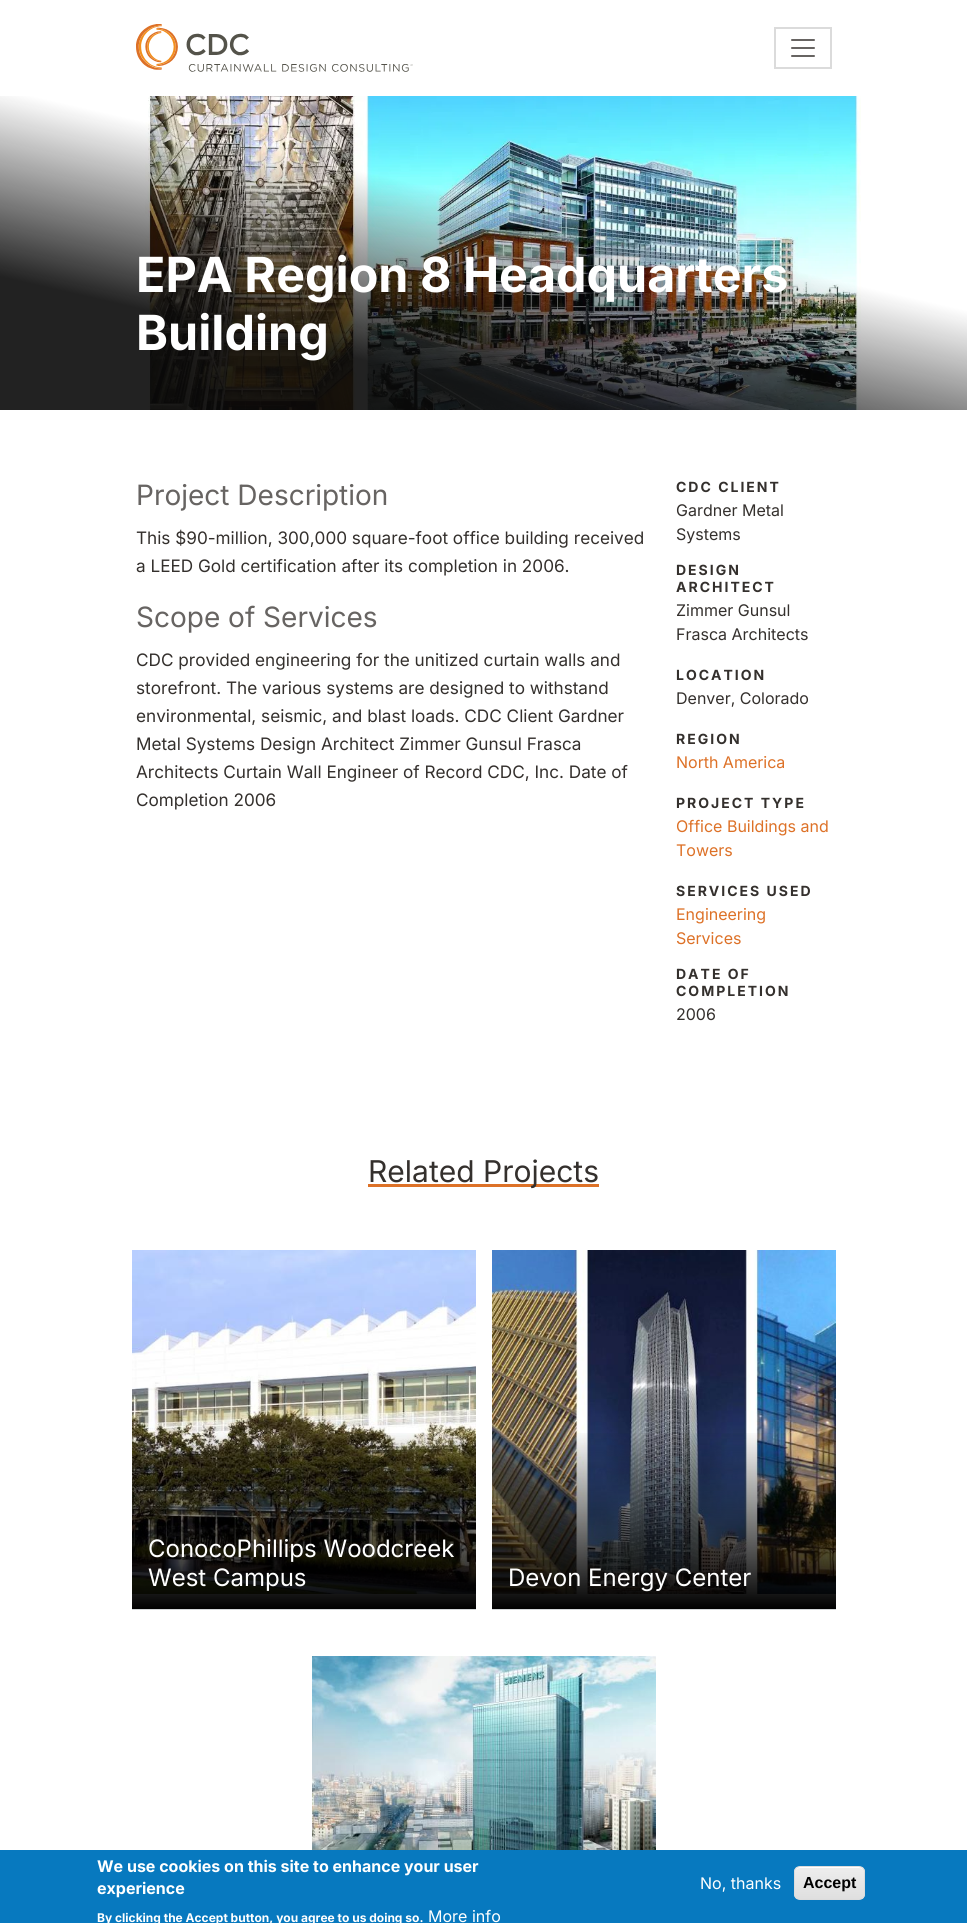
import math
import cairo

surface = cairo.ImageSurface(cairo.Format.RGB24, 967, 1923)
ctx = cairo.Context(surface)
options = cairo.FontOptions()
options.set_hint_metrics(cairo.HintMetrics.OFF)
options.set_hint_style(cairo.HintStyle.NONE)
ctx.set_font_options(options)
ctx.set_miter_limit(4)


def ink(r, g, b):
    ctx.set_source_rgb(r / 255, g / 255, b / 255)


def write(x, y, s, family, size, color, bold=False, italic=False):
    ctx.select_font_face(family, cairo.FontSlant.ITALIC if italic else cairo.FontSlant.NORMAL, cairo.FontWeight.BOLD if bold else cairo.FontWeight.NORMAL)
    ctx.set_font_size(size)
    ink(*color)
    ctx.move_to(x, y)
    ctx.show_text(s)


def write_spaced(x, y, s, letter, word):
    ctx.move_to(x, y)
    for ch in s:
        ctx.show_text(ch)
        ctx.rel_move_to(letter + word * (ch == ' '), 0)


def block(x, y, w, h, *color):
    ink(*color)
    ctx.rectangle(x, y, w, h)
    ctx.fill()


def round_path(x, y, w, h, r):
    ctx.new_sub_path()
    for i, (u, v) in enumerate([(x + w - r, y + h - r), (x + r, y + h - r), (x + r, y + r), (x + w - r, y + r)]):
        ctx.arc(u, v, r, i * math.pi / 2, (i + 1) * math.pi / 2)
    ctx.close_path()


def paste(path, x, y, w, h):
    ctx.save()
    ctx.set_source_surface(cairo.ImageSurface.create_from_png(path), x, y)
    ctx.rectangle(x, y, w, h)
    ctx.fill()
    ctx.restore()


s1 = dict(family="Inter", size=48.4, color=(255, 255, 255), bold=True)
s2 = dict(family="Inter", size=28, color=(103, 100, 98))
s3 = dict(family="Inter", size=17.15, color=(52, 48, 45))
s4 = dict(family="Inter", size=16, color=(52, 48, 45))
s5 = dict(family="Inter", size=16, color=(221, 113, 39))
s6 = dict(family="Inter", size=30, color=(52, 48, 45))
s7 = dict(family="Inter", size=24, color=(255, 255, 255))
s8 = dict(family="Inter", size=16, color=(255, 255, 255), bold=True)
s9 = dict(family="Inter", size=12, color=(255, 255, 255), bold=True)
s10 = dict(family="Inter", size=16, color=(255, 255, 255))
s11 = dict(family="Liberation Sans", size=16, color=(0, 0, 0), bold=True)

ink(255, 255, 255)
ctx.paint()
paste("pic1.png", 136, 24, 277, 48)
ctx.rectangle(775, 28, 56, 40)
ink(219, 219, 219)
ctx.stroke()
paste("pic2.png", 791, 39, 24, 18)
paste("pic3.png", 145, 96, 716, 314)
gradient = cairo.LinearGradient(425, 508, 542, -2)
gradient.add_color_stop_rgba(0.25, 0.039, 0.039, 0.039, 0.9)
gradient.add_color_stop_rgba(0.6, 0.039, 0.039, 0.039, 0)
ctx.set_source(gradient)
ctx.rectangle(0, 96, 967, 314)
ctx.fill()
write(136, 292, "EPA Region 8 Headquarters", **s1)
write(136, 350, "Building", **s1)
write(136, 505, "Project Description", **s2)
write(136, 544, "This $90-million, 300,000 square-foot office building received", **s3)
write(136, 572, "a LEED Gold certification after its completion in 2006.", **s3)
write(136, 627, "Scope of Services", **s2)
write(136, 666, "CDC provided engineering for the unitized curtain walls and", **s3)
write(136, 694, "storefront. The various systems are designed to withstand", **s3)
write(136, 722, "environmental, seismic, and blast loads. CDC Client Gardner", **s3)
write(136, 750, "Metal Systems Design Architect Zimmer Gunsul Frasca", **s3)
write(136, 778, "Architects Curtain Wall Engineer of Record CDC, Inc. Date of", **s3)
write(136, 806, "Completion 2006", **s3)
ctx.select_font_face("Inter", cairo.FontSlant.NORMAL, cairo.FontWeight.BOLD)
ctx.set_font_size(14)
write_spaced(676, 492, "CDC CLIENT", 2, 0)
write(676, 516, "Gardner Metal", **s4)
write(676, 540, "Systems", **s4)
ctx.select_font_face("Inter", cairo.FontSlant.NORMAL, cairo.FontWeight.BOLD)
ctx.set_font_size(14)
write_spaced(676, 575, "DESIGN", 2, 0)
write_spaced(676, 592, "ARCHITECT", 2, 0)
write(676, 616, "Zimmer Gunsul", **s4)
write(676, 640, "Frasca Architects", **s4)
ctx.select_font_face("Inter", cairo.FontSlant.NORMAL, cairo.FontWeight.BOLD)
ctx.set_font_size(14)
write_spaced(676, 680, "LOCATION", 2, 0)
write(676, 704, "Denver, Colorado", **s4)
ctx.select_font_face("Inter", cairo.FontSlant.NORMAL, cairo.FontWeight.BOLD)
ctx.set_font_size(14)
write_spaced(676, 744, "REGION", 2, 0)
write(676, 768, "North America", **s5)
ctx.select_font_face("Inter", cairo.FontSlant.NORMAL, cairo.FontWeight.BOLD)
ctx.set_font_size(14)
ink(52, 48, 45)
write_spaced(676, 808, "PROJECT TYPE", 2, 0)
write(676, 832, "Office Buildings and", **s5)
write(676, 856, "Towers", **s5)
ctx.select_font_face("Inter", cairo.FontSlant.NORMAL, cairo.FontWeight.BOLD)
ctx.set_font_size(14)
ink(52, 48, 45)
write_spaced(676, 896, "SERVICES USED", 2, 0)
write(676, 920, "Engineering", **s5)
write(676, 944, "Services", **s5)
ctx.select_font_face("Inter", cairo.FontSlant.NORMAL, cairo.FontWeight.BOLD)
ctx.set_font_size(14)
ink(52, 48, 45)
write_spaced(676, 979, "DATE OF", 2, 0)
write_spaced(676, 996, "COMPLETION", 2, 0)
write(676, 1020, "2006", **s4)
block(368, 1184, 231, 3, 221, 113, 39)
write(368, 1182, "Related Projects", **s6)
block(132, 1609, 344, 1, 211, 215, 217)
paste("pic4.png", 132, 1250, 344, 344)
gradient = cairo.LinearGradient(304, 1609, 304, 1250)
gradient.add_color_stop_rgba(0, 0, 0, 0, 1)
gradient.add_color_stop_rgba(0.5, 0, 0, 0, 0)
ctx.set_source(gradient)
ctx.rectangle(132, 1433, 344, 176)
ctx.fill()
write(148, 1557, "ConocoPhillips Woodcreek", **s7)
write(148, 1586, "West Campus", **s7)
block(492, 1609, 344, 1, 211, 215, 217)
paste("pic5.png", 492, 1250, 344, 344)
gradient = cairo.LinearGradient(664, 1609, 664, 1250)
gradient.add_color_stop_rgba(0, 0, 0, 0, 1)
gradient.add_color_stop_rgba(0.5, 0, 0, 0, 0)
ctx.set_source(gradient)
ctx.rectangle(492, 1433, 344, 176)
ctx.fill()
write(508, 1586, "Devon Energy Center", **s7)
paste("pic6.png", 312, 1656, 344, 194)
block(0, 1850, 967, 73, 7, 121, 191)
write(97, 1872, "We use cookies on this site to enhance your user", **s8)
write(97, 1894, "experience", **s8)
write(97, 1922, "By clicking the Accept button, you agree to us doing so.", **s9)
write(428, 1922, "More info", **s10)
write(700, 1889, "No, thanks", **s10)
ctx.save()
round_path(794, 1866, 71, 34, 6)
ctx.clip()
gradient = cairo.LinearGradient(830, 1867, 830, 1899)
gradient.add_color_stop_rgba(0.05, 0.929, 0.929, 0.929, 1)
gradient.add_color_stop_rgba(1, 0.875, 0.875, 0.875, 1)
ctx.set_source(gradient)
ctx.rectangle(794, 1867, 71, 32)
ctx.fill()
ctx.restore()
ctx.new_path()
ctx.move_to(800, 1868)
ctx.line_to(859, 1868)
ctx.curve_to(862, 1868, 864, 1870, 864, 1873)
ctx.curve_to(864, 1865, 855, 1867, 849, 1867)
ctx.line_to(810, 1867)
ctx.curve_to(804, 1867, 795, 1865, 795, 1873)
ctx.curve_to(795, 1870, 797, 1868, 800, 1868)
ctx.close_path()
ctx.fill()
round_path(794.5, 1866.5, 70, 33, 5.5)
ink(220, 220, 220)
ctx.set_line_width(1)
ctx.stroke()
write(803, 1888, "Accept", **s11)
surface.write_to_png("screenshot.png")
